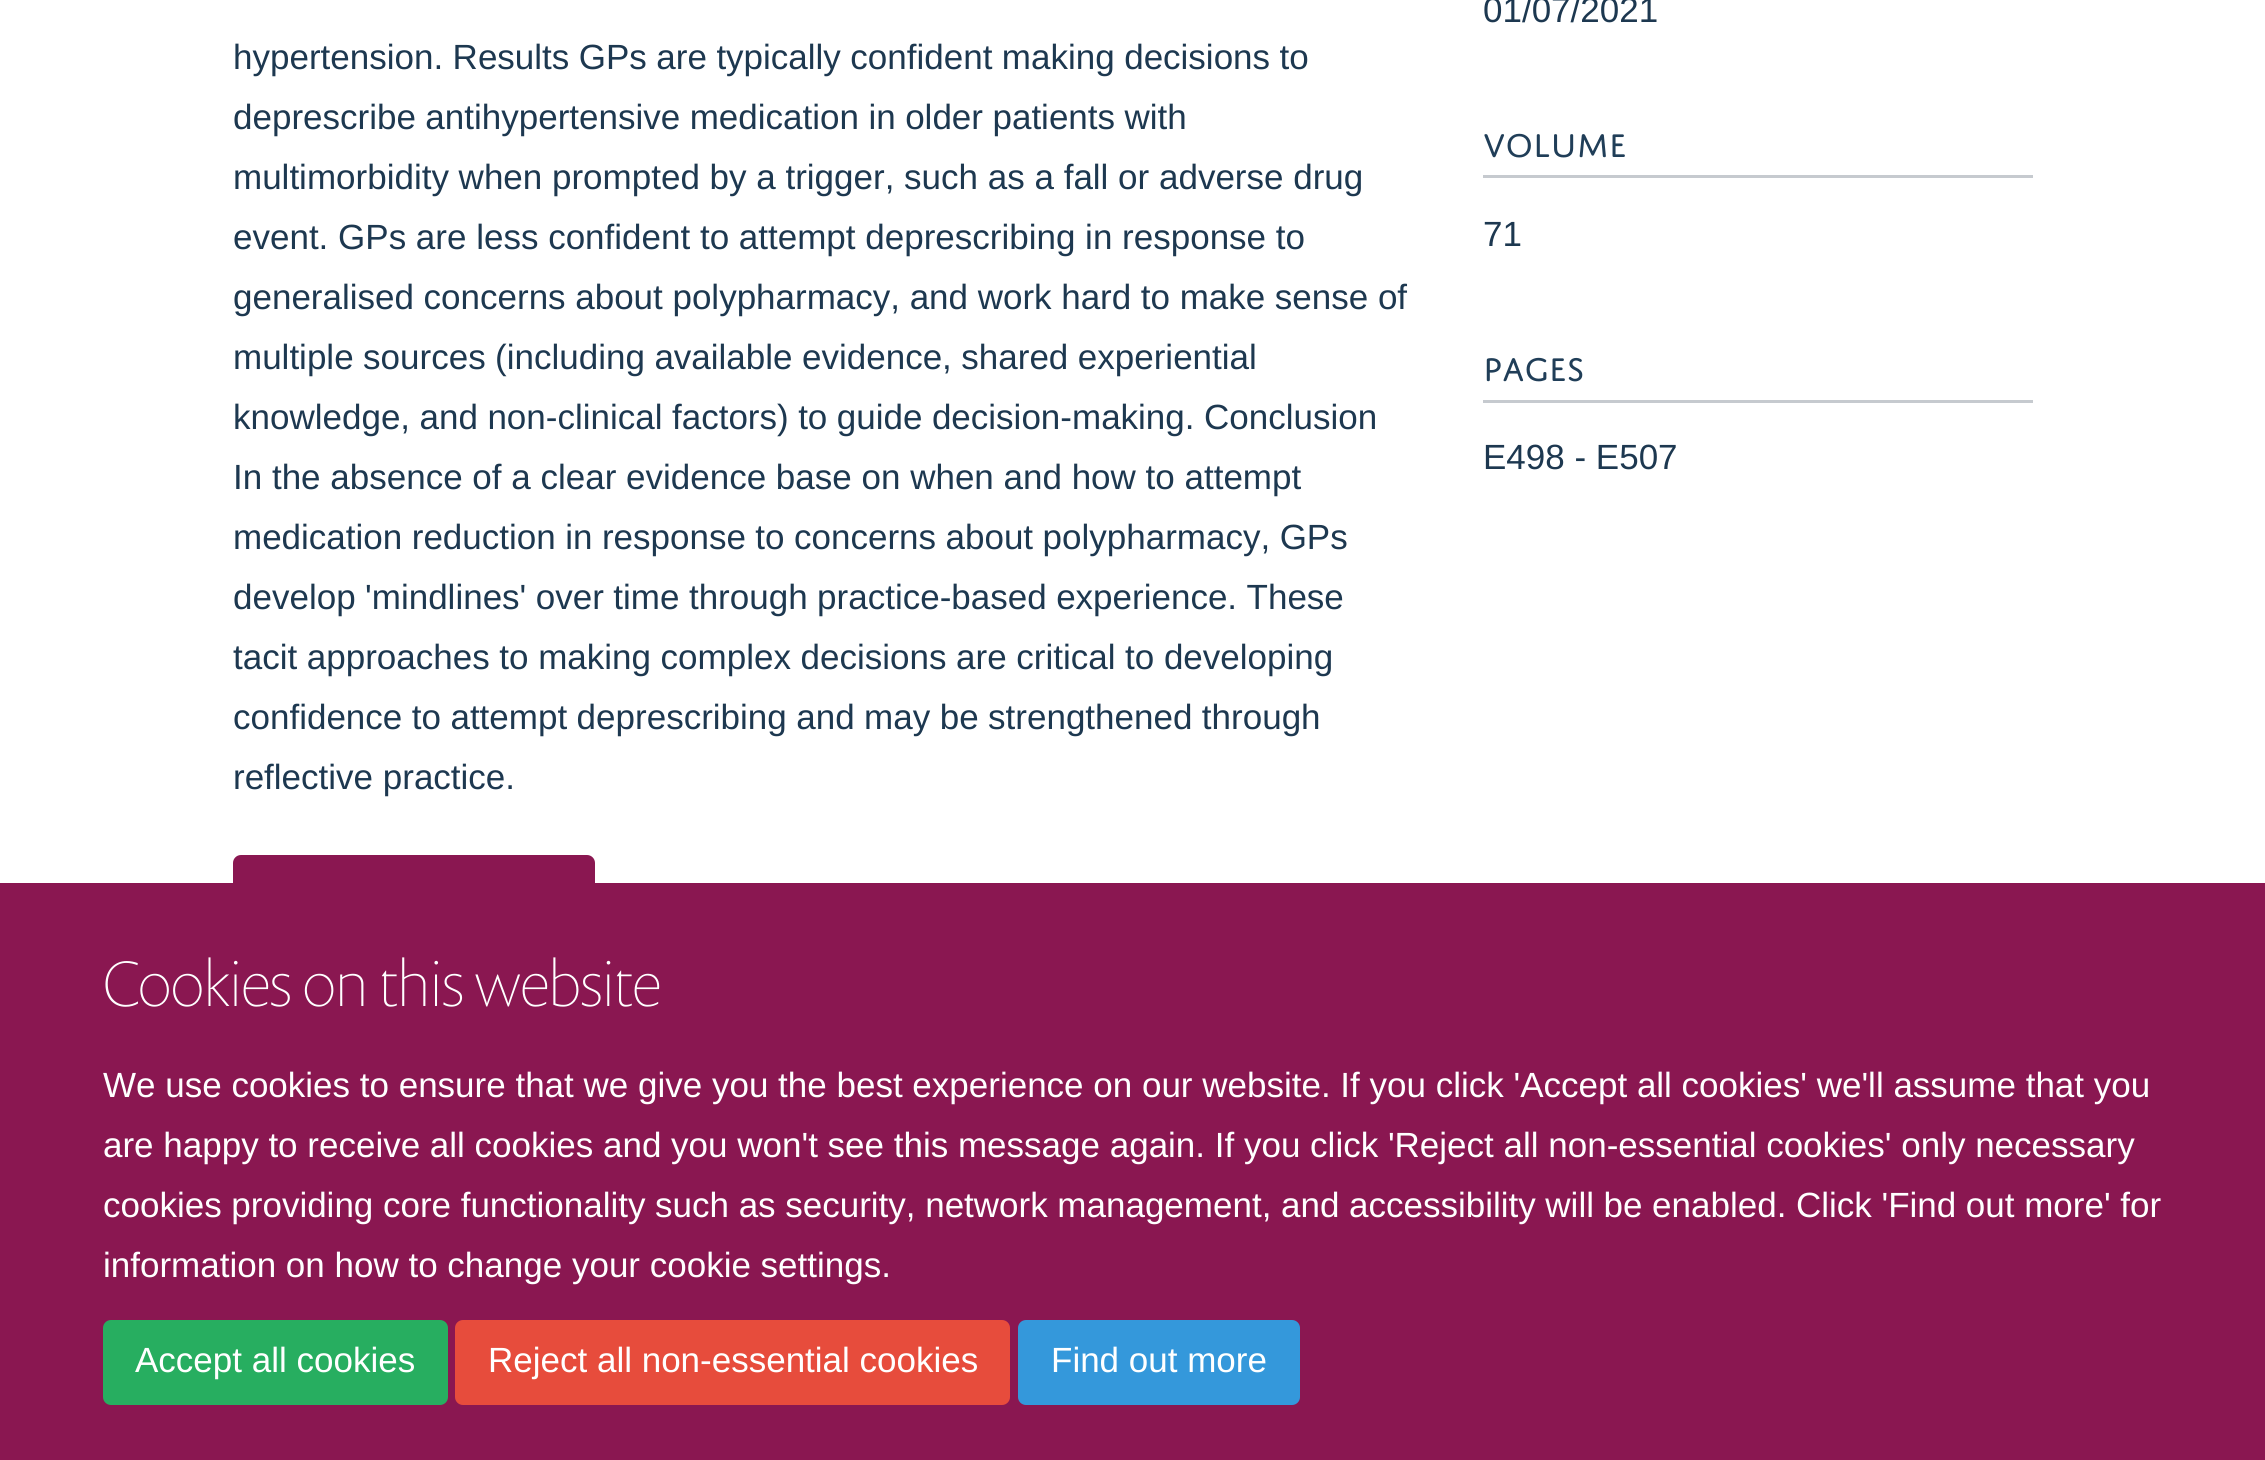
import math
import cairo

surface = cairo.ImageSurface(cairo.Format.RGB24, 2265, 1460)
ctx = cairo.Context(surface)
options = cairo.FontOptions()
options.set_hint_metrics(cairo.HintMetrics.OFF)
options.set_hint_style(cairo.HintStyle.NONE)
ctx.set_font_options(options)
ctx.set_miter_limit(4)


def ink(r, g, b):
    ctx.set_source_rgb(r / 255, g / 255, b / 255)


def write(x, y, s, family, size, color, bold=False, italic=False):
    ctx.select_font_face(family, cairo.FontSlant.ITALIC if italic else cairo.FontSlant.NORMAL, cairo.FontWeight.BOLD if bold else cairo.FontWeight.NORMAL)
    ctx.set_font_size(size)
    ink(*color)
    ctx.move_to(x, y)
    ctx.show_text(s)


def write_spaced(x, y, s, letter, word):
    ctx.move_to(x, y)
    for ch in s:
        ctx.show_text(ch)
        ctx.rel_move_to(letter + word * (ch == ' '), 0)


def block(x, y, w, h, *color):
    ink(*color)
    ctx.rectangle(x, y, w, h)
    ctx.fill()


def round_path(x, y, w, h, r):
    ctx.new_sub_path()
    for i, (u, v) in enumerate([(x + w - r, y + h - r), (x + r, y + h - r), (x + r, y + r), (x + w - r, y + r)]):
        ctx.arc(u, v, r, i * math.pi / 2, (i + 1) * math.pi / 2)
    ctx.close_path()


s1 = dict(family="Liberation Sans", size=35, color=(29, 56, 80))
s2 = dict(family="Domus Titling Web", size=35, color=(32, 62, 88))
s3 = dict(family="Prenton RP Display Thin", size=65, color=(255, 255, 255))
s4 = dict(family="Liberation Sans", size=35, color=(255, 255, 255))

ink(255, 255, 255)
ctx.paint()
ctx.select_font_face("Liberation Sans")
ctx.set_font_size(35)
ink(29, 56, 80)
write_spaced(233, 69, "hypertension. Results GPs are typically confident making decisions to", 0, -0.25)
write_spaced(233, 129, "deprescribe antihypertensive medication in older patients with", 0, -0.25)
write(233, 189, "multimorbidity when prompted by a trigger, such as a fall or adverse drug", **s1)
write(233, 249, "event. GPs are less confident to attempt deprescribing in response to", **s1)
write_spaced(233, 309, "generalised concerns about polypharmacy, and work hard to make sense of", 0, -0.1)
write_spaced(233, 369, "multiple sources (including available evidence, shared experiential", 0, -0.25)
write_spaced(233, 429, "knowledge, and non-clinical factors) to guide decision-making. Conclusion", 0, -0.25)
write(233, 489, "In the absence of a clear evidence base on when and how to attempt", **s1)
write_spaced(233, 549, "medication reduction in response to concerns about polypharmacy, GPs", 0, -0.25)
write_spaced(233, 609, "develop 'mindlines' over time through practice-based experience. These", 0, -0.25)
write_spaced(233, 669, "tacit approaches to making complex decisions are critical to developing", 0, -0.1)
write_spaced(233, 729, "confidence to attempt deprescribing and may be strengthened through", 0, -0.25)
write(233, 789, "reflective practice.", **s1)
ink(138, 23, 81)
round_path(234.5, 856.5, 359, 82, 6.5)
ctx.fill_preserve()
ctx.set_line_width(3)
ctx.stroke()
write(1483, 22, "01/07/2021", **s1)
block(1483, 175, 550, 3, 198, 202, 207)
write(1483, 157, "VOLUME", **s2)
write(1483, 246, "71", **s1)
block(1483, 400, 550, 3, 198, 202, 207)
write(1483, 381, "PAGES", **s2)
write(1483, 469, "E498 - E507", **s1)
block(0, 883, 2265, 577, 138, 23, 81)
write(103, 1006, "Cookies on this website", **s3)
write(103, 1097, "We use cookies to ensure that we give you the best experience on our website. If you click 'Accept all cookies' we'll assume that you", **s4)
write(103, 1157, "are happy to receive all cookies and you won't see this message again. If you click 'Reject all non-essential cookies' only necessary", **s4)
write_spaced(103, 1217, "cookies providing core functionality such as security, network management, and accessibility will be enabled. Click 'Find out more' for", 0, -0.1)
write(103, 1277, "information on how to change your cookie settings.", **s4)
ink(39, 174, 96)
round_path(104.5, 1321.5, 342, 82, 6.5)
ctx.fill_preserve()
ctx.stroke()
write(135, 1372, "Accept all cookies", **s4)
ink(231, 76, 60)
round_path(456.5, 1321.5, 552, 82, 6.5)
ctx.fill_preserve()
ctx.stroke()
write(488, 1372, "Reject all non-essential cookies", **s4)
ink(52, 152, 219)
round_path(1019.5, 1321.5, 279, 82, 6.5)
ctx.fill_preserve()
ctx.stroke()
write(1051, 1372, "Find out more", **s4)
surface.write_to_png("screenshot.png")
